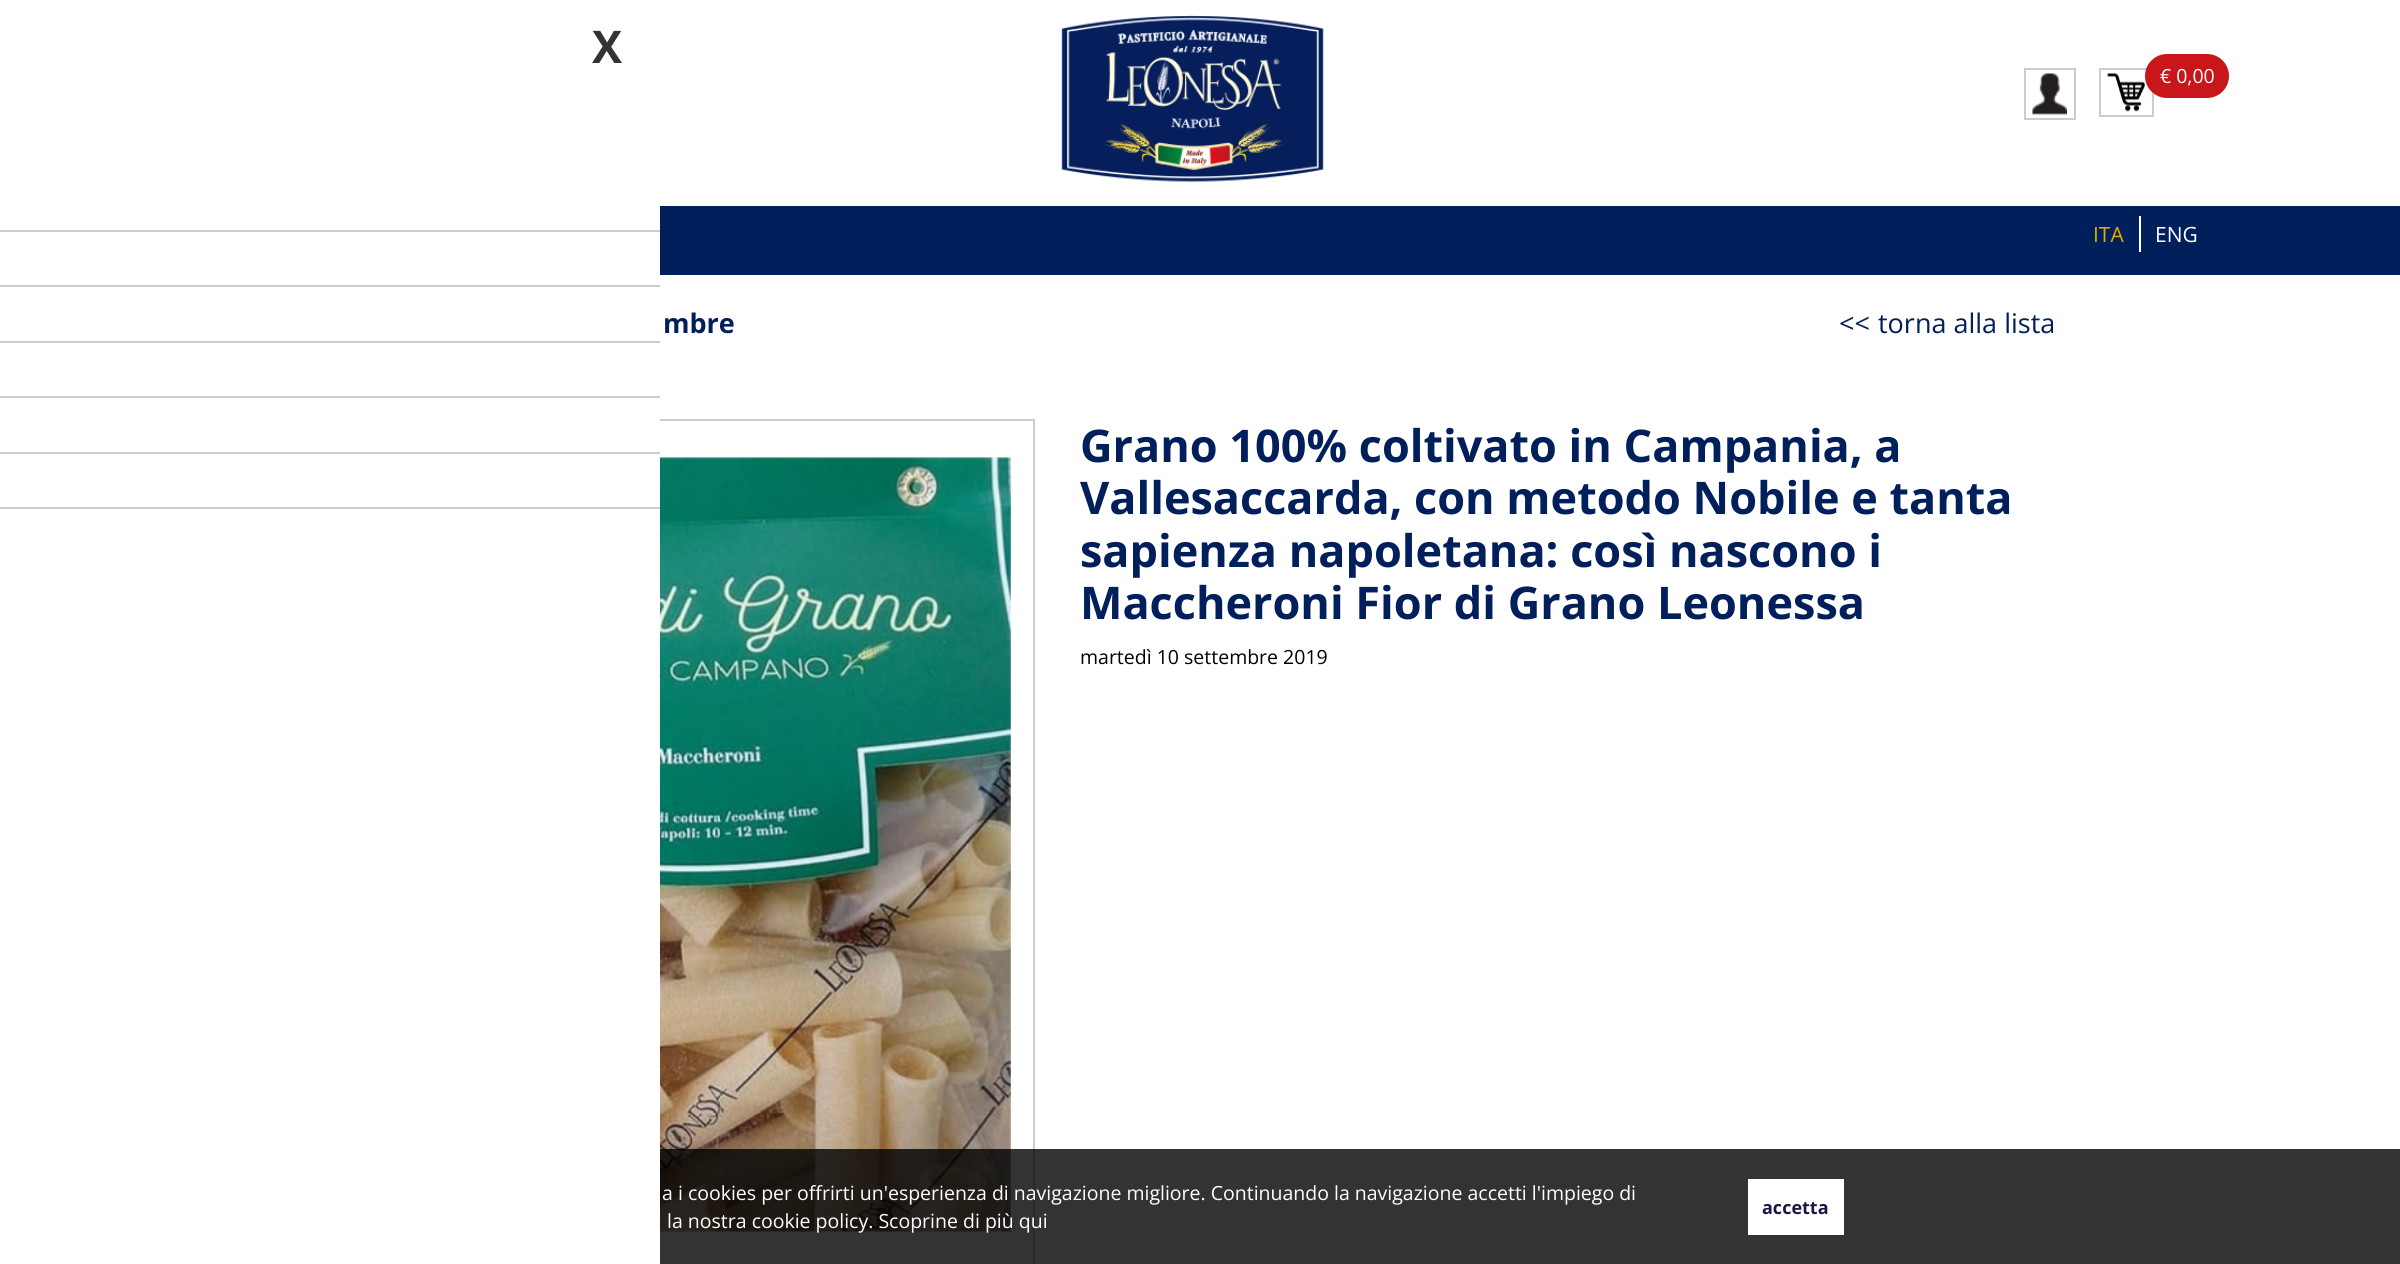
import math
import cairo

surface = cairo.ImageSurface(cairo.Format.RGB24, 2400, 1264)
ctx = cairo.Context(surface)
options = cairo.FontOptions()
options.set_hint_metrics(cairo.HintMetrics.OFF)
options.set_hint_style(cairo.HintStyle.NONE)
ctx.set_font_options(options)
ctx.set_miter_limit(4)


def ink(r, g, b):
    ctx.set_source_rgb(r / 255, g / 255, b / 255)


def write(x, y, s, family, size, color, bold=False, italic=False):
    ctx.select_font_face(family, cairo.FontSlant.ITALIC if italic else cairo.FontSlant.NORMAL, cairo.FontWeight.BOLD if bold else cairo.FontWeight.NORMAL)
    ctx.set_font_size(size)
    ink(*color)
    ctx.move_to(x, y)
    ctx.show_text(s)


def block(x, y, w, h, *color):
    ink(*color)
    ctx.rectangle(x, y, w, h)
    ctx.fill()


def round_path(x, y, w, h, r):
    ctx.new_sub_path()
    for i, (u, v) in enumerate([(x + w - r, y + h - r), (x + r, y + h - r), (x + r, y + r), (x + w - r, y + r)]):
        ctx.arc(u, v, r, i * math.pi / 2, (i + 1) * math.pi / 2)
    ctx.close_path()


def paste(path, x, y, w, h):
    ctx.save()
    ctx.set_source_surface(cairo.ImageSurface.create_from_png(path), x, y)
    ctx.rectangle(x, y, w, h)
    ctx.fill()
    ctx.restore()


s1 = dict(family="Open Sans", size=45, color=(51, 51, 51), bold=True)
s2 = dict(family="Open Sans", size=19.5, color=(255, 255, 255))
s3 = dict(family="Open Sans", size=21, color=(227, 170, 2))
s4 = dict(family="Open Sans", size=21, color=(255, 255, 255))
s5 = dict(family="Open Sans", size=27, color=(0, 31, 91), bold=True)
s6 = dict(family="Open Sans", size=27, color=(0, 31, 91))
s7 = dict(family="Open Sans", size=45, color=(0, 31, 91), bold=True)
s8 = dict(family="Open Sans", size=19.5, color=(0, 0, 0))
s9 = dict(family="Open Sans", size=18, color=(33, 20, 69), bold=True)

ink(255, 255, 255)
ctx.paint()
ctx.rectangle(369, 420, 665, 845)
ink(204, 204, 204)
ctx.stroke()
block(368, 419, 292, 845, 255, 255, 255)
write(592, 63, "X", **s1)
block(0, 230, 660, 2, 204, 204, 204)
block(0, 285, 660, 2, 204, 204, 204)
block(0, 341, 660, 2, 204, 204, 204)
block(0, 396, 660, 2, 204, 204, 204)
block(0, 452, 660, 2, 204, 204, 204)
block(0, 507, 660, 2, 204, 204, 204)
paste("pic1.png", 1061, 15, 263, 167)
ctx.rectangle(2025, 69, 50, 50)
ctx.stroke()
paste("pic2.png", 2032, 73, 35, 42)
ctx.rectangle(2100, 69, 53, 47)
ctx.stroke()
paste("pic3.png", 2107, 73, 38, 39)
ink(200, 22, 26)
round_path(2145, 54, 84, 44, 22)
ctx.fill()
write(2160, 83, "€ 0,00", **s2)
block(660, 206, 1740, 69, 0, 31, 91)
block(2139, 216, 2, 36, 255, 255, 255)
write(2093, 242, "ITA", **s3)
write(2155, 242, "ENG", **s4)
write(663, 333, "mbre", **s5)
write(1839, 333, "<<", **s6)
write(1878, 333, "torna alla lista", **s6)
paste("pic4.png", 660, 457, 351, 775)
write(1080, 462, "Grano 100% coltivato in Campania, a", **s7)
write(1080, 514, "Vallesaccarda, con metodo Nobile e tanta", **s7)
write(1080, 567, "sapienza napoletana: così nascono i", **s7)
write(1080, 619, "Maccheroni Fior di Grano Leonessa", **s7)
write(1080, 664, "martedì 10 settembre 2019", **s8)
ctx.set_source_rgba(0, 0, 0, 0.8)
ctx.rectangle(660, 1149, 1740, 115)
ctx.fill()
write(662, 1200, "a i cookies per offrirti un'esperienza di navigazione migliore. Continuando la navigazione accetti l'impiego di", **s2)
write(667, 1228, "la nostra cookie policy. Scoprine di più qui", **s2)
block(1748, 1179, 96, 56, 255, 255, 255)
write(1762, 1214, "accetta", **s9)
surface.write_to_png("screenshot.png")
